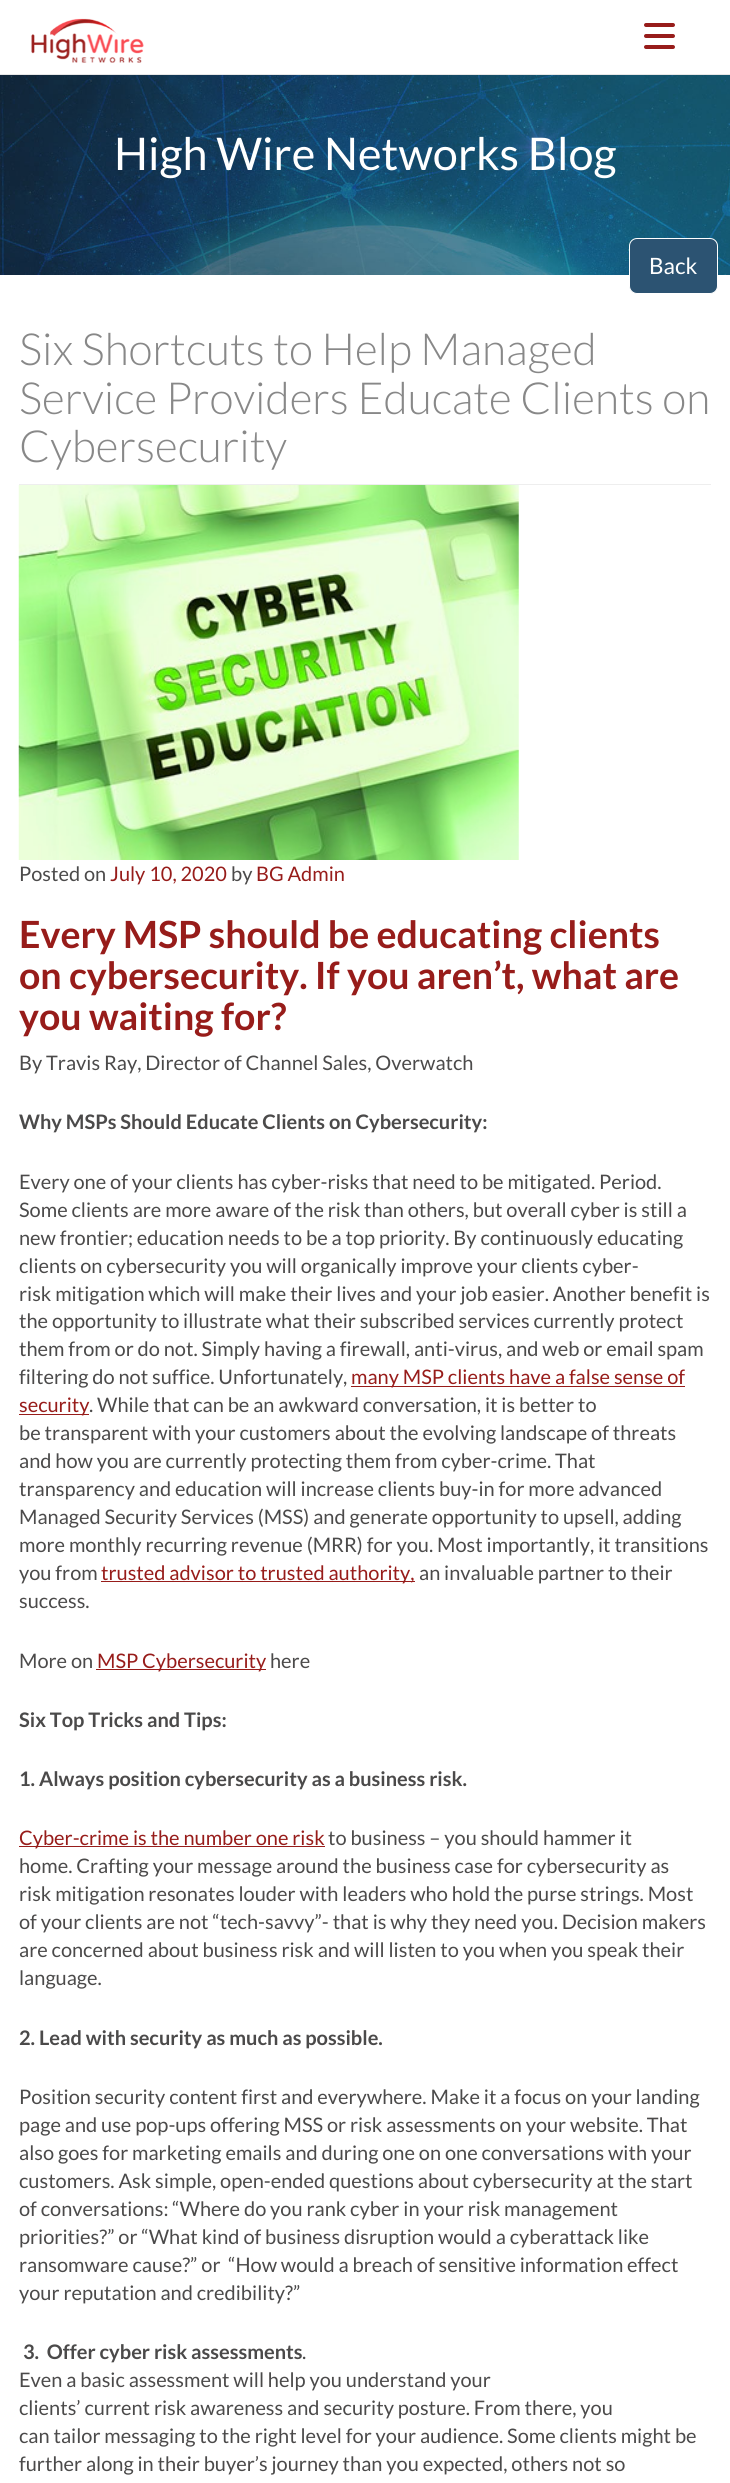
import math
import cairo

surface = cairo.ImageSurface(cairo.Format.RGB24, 730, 2483)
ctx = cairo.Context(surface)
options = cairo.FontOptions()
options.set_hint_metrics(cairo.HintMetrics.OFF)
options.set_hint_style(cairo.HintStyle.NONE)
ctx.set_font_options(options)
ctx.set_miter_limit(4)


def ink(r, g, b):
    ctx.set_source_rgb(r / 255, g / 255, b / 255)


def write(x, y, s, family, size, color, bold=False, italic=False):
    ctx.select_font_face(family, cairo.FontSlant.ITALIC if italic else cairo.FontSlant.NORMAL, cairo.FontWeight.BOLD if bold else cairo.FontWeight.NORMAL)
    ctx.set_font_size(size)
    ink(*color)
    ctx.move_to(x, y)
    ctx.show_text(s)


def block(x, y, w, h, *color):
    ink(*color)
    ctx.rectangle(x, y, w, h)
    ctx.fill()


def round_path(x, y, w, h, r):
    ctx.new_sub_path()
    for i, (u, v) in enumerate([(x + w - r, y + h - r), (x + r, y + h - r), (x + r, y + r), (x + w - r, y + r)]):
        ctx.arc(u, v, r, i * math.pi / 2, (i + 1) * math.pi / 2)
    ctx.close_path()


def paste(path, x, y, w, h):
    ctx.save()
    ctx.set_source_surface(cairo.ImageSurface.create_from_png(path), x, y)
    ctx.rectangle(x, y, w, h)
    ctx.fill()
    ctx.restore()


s1 = dict(family="Lato", size=45, color=(255, 255, 255))
s2 = dict(family="Lato", size=22.5, color=(255, 255, 255))
s3 = dict(family="Lato Light", size=44.25, color=(136, 136, 136))
s4 = dict(family="Lato", size=20, color=(75, 74, 74))
s5 = dict(family="Lato", size=20, color=(151, 28, 26))
s6 = dict(family="Lato", size=37.5, color=(151, 28, 26), bold=True)
s7 = dict(family="Lato", size=20, color=(75, 74, 74), bold=True)

ink(255, 255, 255)
ctx.paint()
ink(151, 28, 26)
round_path(644, 34, 31, 4, 2)
ctx.fill()
round_path(644, 23, 31, 4, 2)
ctx.fill()
round_path(644, 45, 31, 4, 2)
ctx.fill()
block(0, 74, 730, 1, 231, 231, 231)
paste("pic1.png", 31, 18, 113, 45)
paste("pic2.png", 0, 75, 730, 200)
write(114, 170, "High Wire Networks Blog", **s1)
ink(44, 83, 114)
round_path(629.5, 238.5, 88, 55, 7.5)
ctx.fill_preserve()
ink(255, 255, 255)
ctx.set_line_width(1)
ctx.stroke()
write(649, 274, "Back", **s2)
block(19, 484, 692, 1, 238, 238, 238)
write(19, 365, "Six Shortcuts to Help Managed", **s3)
write(19, 414, "Service Providers Educate Clients on", **s3)
write(19, 462, "Cybersecurity", **s3)
paste("pic3.png", 18, 485, 501, 375)
write(19, 881, "Posted on", **s4)
write(110, 881, "July 10, 2020", **s5)
write(231, 881, "by", **s4)
write(256, 881, "BG Admin", **s5)
write(19, 948, "Every MSP should be educating clients", **s6)
write(19, 989, "on cybersecurity. If you aren’t, what are", **s6)
write(19, 1030, "you waiting for?", **s6)
write(19, 1070, "By Travis Ray, Director of Channel Sales, Overwatch", **s4)
write(19, 1129, "Why MSPs Should Educate Clients on Cybersecurity:", **s7)
write(19, 1189, "Every one of your clients has cyber-risks that need to be mitigated. Period.", **s4)
write(19, 1217, "Some clients are more aware of the risk than others, but overall cyber is still a", **s4)
write(19, 1245, "new frontier; education needs to be a top priority. By continuously educating", **s4)
write(19, 1273, "clients on cybersecurity you will organically improve your clients cyber-", **s4)
write(19, 1301, "risk mitigation which will make their lives and your job easier. Another benefit is", **s4)
write(19, 1328, "the opportunity to illustrate what their subscribed services currently protect", **s4)
write(19, 1356, "them from or do not. Simply having a firewall, anti-virus, and web or email spam", **s4)
write(19, 1384, "filtering do not suffice. Unfortunately,", **s4)
block(351, 1386, 334, 1, 151, 28, 26)
write(351, 1384, "many MSP clients have a false sense of", **s5)
block(19, 1414, 70, 1, 151, 28, 26)
write(19, 1412, "security", **s5)
write(89, 1412, ". While that can be an awkward conversation, it is better to", **s4)
write(19, 1440, "be transparent with your customers about the evolving landscape of threats", **s4)
write(19, 1468, "and how you are currently protecting them from cyber-crime. That", **s4)
write(19, 1496, "transparency and education will increase clients buy-in for more advanced", **s4)
write(19, 1524, "Managed Security Services (MSS) and generate opportunity to upsell, adding", **s4)
write(19, 1552, "more monthly recurring revenue (MRR) for you. Most importantly, it transitions", **s4)
write(19, 1580, "you from", **s4)
block(101, 1581, 314, 1, 151, 28, 26)
write(101, 1580, "trusted advisor to trusted authority,", **s5)
write(419, 1580, "an invaluable partner to their", **s4)
write(19, 1608, "success.", **s4)
write(19, 1668, "More on", **s4)
block(96, 1669, 170, 1, 151, 28, 26)
write(97, 1668, "MSP Cybersecurity", **s5)
write(270, 1668, "here", **s4)
write(19, 1727, "Six Top Tricks and Tips:", **s7)
write(19, 1786, "1. Always position cybersecurity as a business risk.", **s7)
block(19, 1846, 306, 1, 151, 28, 26)
write(19, 1845, "Cyber-crime is the number one risk", **s5)
write(328, 1845, "to business – you should hammer it", **s4)
write(19, 1873, "home. Crafting your message around the business case for cybersecurity as", **s4)
write(19, 1901, "risk mitigation resonates louder with leaders who hold the purse strings. Most", **s4)
write(19, 1929, "of your clients are not “tech-savvy”- that is why they need you. Decision makers", **s4)
write(19, 1957, "are concerned about business risk and will listen to you when you speak their", **s4)
write(19, 1985, "language.", **s4)
write(19, 2045, "2. Lead with security as much as possible.", **s7)
write(19, 2104, "Position security content first and everywhere. Make it a focus on your landing", **s4)
write(19, 2132, "page and use pop-ups offering MSS or risk assessments on your website. That", **s4)
write(19, 2160, "also goes for marketing emails and during one on one conversations with your", **s4)
write(19, 2188, "customers. Ask simple, open-ended questions about cybersecurity at the start", **s4)
write(19, 2216, "of conversations: “Where do you rank cyber in your risk management", **s4)
write(19, 2244, "priorities?” or “What kind of business disruption would a cyberattack like", **s4)
write(19, 2272, "ransomware cause?” or  “How would a breach of sensitive information effect", **s4)
write(19, 2300, "your reputation and credibility?”", **s4)
write(23, 2359, "3.  Offer cyber risk assessments", **s7)
write(302, 2359, ".", **s4)
write(19, 2387, "Even a basic assessment will help you understand your", **s4)
write(19, 2415, "clients’ current risk awareness and security posture. From there, you", **s4)
write(19, 2443, "can tailor messaging to the right level for your audience. Some clients might be", **s4)
write(19, 2471, "further along in their buyer’s journey than you expected, others not so", **s4)
surface.write_to_png("screenshot.png")
